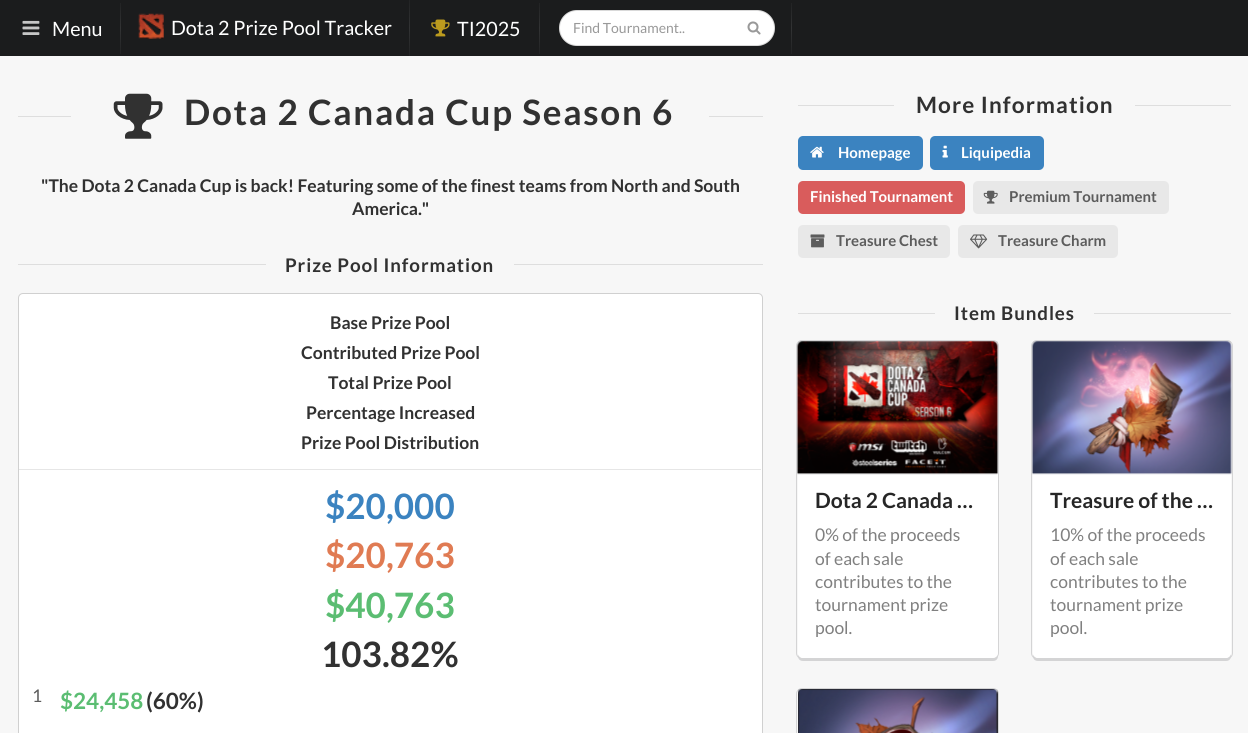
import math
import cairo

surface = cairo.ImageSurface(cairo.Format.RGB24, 1248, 733)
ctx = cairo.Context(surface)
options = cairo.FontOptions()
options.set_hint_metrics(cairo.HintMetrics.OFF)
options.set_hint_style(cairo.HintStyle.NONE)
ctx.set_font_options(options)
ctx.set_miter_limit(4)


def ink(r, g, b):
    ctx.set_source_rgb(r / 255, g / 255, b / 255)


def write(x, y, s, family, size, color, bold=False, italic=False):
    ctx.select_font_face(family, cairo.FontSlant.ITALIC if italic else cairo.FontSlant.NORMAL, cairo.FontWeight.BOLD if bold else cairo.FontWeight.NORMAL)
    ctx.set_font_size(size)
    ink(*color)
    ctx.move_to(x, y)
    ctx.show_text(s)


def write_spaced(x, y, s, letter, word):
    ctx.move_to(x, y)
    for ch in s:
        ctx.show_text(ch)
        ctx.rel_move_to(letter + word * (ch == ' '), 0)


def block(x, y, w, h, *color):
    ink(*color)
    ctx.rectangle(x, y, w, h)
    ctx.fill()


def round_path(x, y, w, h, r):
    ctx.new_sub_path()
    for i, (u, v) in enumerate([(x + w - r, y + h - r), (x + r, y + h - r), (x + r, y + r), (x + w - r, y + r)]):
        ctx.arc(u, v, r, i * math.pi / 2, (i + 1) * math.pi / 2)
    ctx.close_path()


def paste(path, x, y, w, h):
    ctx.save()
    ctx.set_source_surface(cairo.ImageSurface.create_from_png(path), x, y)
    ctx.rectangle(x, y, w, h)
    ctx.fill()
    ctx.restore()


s1 = dict(family="Lato", size=19.75, color=(255, 255, 255))
s2 = dict(family="Lato", size=14, color=(153, 153, 153))
s3 = dict(family="Lato", size=17.5, color=(49, 49, 49), bold=True)
s4 = dict(family="Lato", size=35, color=(59, 131, 192), bold=True)
s5 = dict(family="Lato", size=35, color=(224, 123, 83), bold=True)
s6 = dict(family="Lato", size=35, color=(91, 189, 114), bold=True)
s7 = dict(family="Lato", size=35, color=(49, 49, 49), bold=True)
s8 = dict(family="Lato", size=17.5, color=(92, 92, 92))
s9 = dict(family="Lato", size=22.5, color=(91, 189, 114), bold=True)
s10 = dict(family="Lato", size=22.5, color=(49, 49, 49), bold=True)
s11 = dict(family="Lato", size=15, color=(255, 255, 255), bold=True)
s12 = dict(family="Lato", size=15, color=(92, 92, 92), bold=True)
s13 = dict(family="Lato", size=21, color=(38, 38, 38), bold=True)
s14 = dict(family="Lato", size=17.5, color=(128, 128, 128))

ink(247, 247, 247)
ctx.paint()
block(0, 0, 1248, 56, 27, 28, 29)
paste("pic1.png", 22, 20, 18, 15)
write(52, 36, "Menu", **s1)
gradient = cairo.LinearGradient(121, 2.5, 121, 54)
gradient.add_color_stop_rgba(0, 0.133, 0.137, 0.141, 1)
gradient.add_color_stop_rgba(0.5, 0.196, 0.2, 0.204, 1)
gradient.add_color_stop_rgba(1, 0.133, 0.137, 0.141, 1)
ctx.set_source(gradient)
ctx.rectangle(120, 3, 1, 51)
ctx.fill()
paste("pic2.png", 138, 13, 26, 26)
write(171, 35, "Dota 2 Prize Pool Tracker", **s1)
gradient = cairo.LinearGradient(409, 0, 409, 56)
gradient.add_color_stop_rgba(0, 0.133, 0.137, 0.141, 1)
gradient.add_color_stop_rgba(0.5, 0.196, 0.2, 0.204, 1)
gradient.add_color_stop_rgba(1, 0.133, 0.137, 0.141, 1)
ctx.set_source(gradient)
ctx.rectangle(409, 0, 1, 56)
ctx.fill()
paste("pic3.png", 431, 19, 19, 18)
write(457, 36, "TI2025", **s1)
gradient = cairo.LinearGradient(539, 2.5, 539, 54)
gradient.add_color_stop_rgba(0, 0.133, 0.137, 0.141, 1)
gradient.add_color_stop_rgba(0.5, 0.196, 0.2, 0.204, 1)
gradient.add_color_stop_rgba(1, 0.133, 0.137, 0.141, 1)
ctx.set_source(gradient)
ctx.rectangle(539, 3, 1, 51)
ctx.fill()
ink(255, 255, 255)
round_path(559, 10, 216, 36, 18)
ctx.fill()
round_path(559.5, 10.5, 215, 35, 17.5)
ctx.set_source_rgba(0, 0, 0, 0.15)
ctx.set_line_width(1)
ctx.stroke()
write(573, 33, "Find Tournament..", **s2)
paste("pic4.png", 747, 21, 14, 14)
gradient = cairo.LinearGradient(792, 2.5, 792, 54)
gradient.add_color_stop_rgba(0, 0.133, 0.137, 0.141, 1)
gradient.add_color_stop_rgba(0.5, 0.196, 0.2, 0.204, 1)
gradient.add_color_stop_rgba(1, 0.133, 0.137, 0.141, 1)
ctx.set_source(gradient)
ctx.rectangle(791, 3, 1, 51)
ctx.fill()
block(18, 116, 53, 1, 222, 222, 222)
paste("pic5.png", 113, 93, 50, 46)
ctx.select_font_face("Lato", cairo.FontSlant.NORMAL, cairo.FontWeight.BOLD)
ctx.set_font_size(35)
ink(49, 49, 49)
write_spaced(184, 125, "Dota 2 Canada Cup Season 6", 1.75, 0)
block(709, 116, 54, 1, 222, 222, 222)
write(41, 192, "\"The Dota 2 Canada Cup is back! Featuring some of the finest teams from North and South", **s3)
write(352, 215, "America.\"", **s3)
block(18, 264, 248, 1, 222, 222, 222)
ctx.set_font_size(18.75)
ink(49, 49, 49)
write_spaced(285, 272, "Prize Pool Information", 0.9, 0)
block(514, 264, 249, 1, 222, 222, 222)
ink(255, 255, 255)
round_path(18.5, 293.5, 744, 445, 4.5)
ctx.fill_preserve()
ink(208, 208, 208)
ctx.stroke()
write(330, 329, "Base Prize Pool", **s3)
write(301, 359, "Contributed Prize Pool", **s3)
write(328, 389, "Total Prize Pool", **s3)
write(306, 419, "Percentage Increased", **s3)
block(19, 469, 742, 1, 230, 230, 230)
write(301, 449, "Prize Pool Distribution", **s3)
write(325, 519, "$20,000", **s4)
write(325, 568, "$20,763", **s5)
write(325, 618, "$40,763", **s6)
write(321, 667, "103.82%", **s7)
write(32, 702, "1", **s8)
write(60, 709, "$24,458", **s9)
write(146, 709, "(60%)", **s10)
block(798, 105, 96, 1, 222, 222, 222)
ink(49, 49, 49)
write_spaced(916, 113, "More Information", 1.1, 0)
block(1135, 105, 96, 1, 222, 222, 222)
ink(59, 131, 192)
round_path(798, 136, 125, 34, 5)
ctx.fill()
paste("pic6.png", 810, 146, 14, 12)
write(838, 158, "Homepage", **s11)
ink(59, 131, 192)
round_path(930, 136, 114, 34, 5)
ctx.fill()
paste("pic7.png", 942, 145, 6, 13)
write(961, 158, "Liquipedia", **s11)
ink(217, 92, 92)
round_path(798, 181, 167, 33, 5)
ctx.fill()
write(810, 202, "Finished Tournament", **s11)
ink(232, 232, 232)
round_path(973, 181, 196, 33, 5)
ctx.fill()
paste("pic8.png", 983, 190, 15, 14)
write(1009, 202, "Premium Tournament", **s12)
ink(232, 232, 232)
round_path(798, 225, 152, 33, 5)
ctx.fill()
paste("pic9.png", 810, 234, 15, 14)
write(836, 246, "Treasure Chest", **s12)
ink(232, 232, 232)
round_path(958, 225, 160, 33, 5)
ctx.fill()
paste("pic10.png", 970, 234, 18, 15)
write(998, 246, "Treasure Charm", **s12)
block(798, 313, 137, 1, 222, 222, 222)
ctx.set_font_size(18.75)
ink(49, 49, 49)
write_spaced(954, 320, "Item Bundles", 0.9, 0)
block(1094, 313, 137, 1, 222, 222, 222)
round_path(796.5, 340.5, 202, 318, 5.5)
ink(212, 212, 213)
ctx.stroke()
ctx.new_path()
ctx.move_to(798, 655)
ctx.line_to(798, 656)
ctx.curve_to(798, 659, 800, 661, 803, 661)
ctx.line_to(993, 661)
ctx.curve_to(996, 661, 998, 659, 998, 656)
ctx.line_to(998, 350)
ctx.line_to(998, 348)
ctx.line_to(998, 653)
ctx.curve_to(998, 655, 995, 658, 993, 658)
ctx.line_to(802, 658)
ctx.curve_to(801, 658, 799, 656, 798, 655)
ctx.close_path()
ctx.fill()
ink(255, 255, 255)
round_path(798, 341, 200, 317, 5)
ctx.fill()
ctx.set_source_rgba(0, 0, 0, 0.05)
ctx.rectangle(798, 341, 200, 133)
ctx.fill()
paste("pic11.png", 797, 341, 201, 134)
write(815, 508, "Dota 2 Canada …", **s13)
write(815, 541, "0% of the proceeds", **s14)
write(815, 565, "of each sale", **s14)
write(815, 588, "contributes to the", **s14)
write(815, 611, "tournament prize", **s14)
write(815, 634, "pool.", **s14)
round_path(1031.5, 340.5, 201, 318, 5.5)
ink(212, 212, 213)
ctx.stroke()
ctx.new_path()
ctx.move_to(1033, 655)
ctx.line_to(1033, 656)
ctx.curve_to(1033, 659, 1035, 661, 1038, 661)
ctx.line_to(1226, 661)
ctx.curve_to(1229, 661, 1231, 659, 1231, 656)
ctx.line_to(1231, 654)
ctx.curve_to(1230, 656, 1228, 658, 1226, 658)
ctx.line_to(1037, 658)
ctx.curve_to(1036, 658, 1034, 656, 1033, 655)
ctx.close_path()
ctx.fill()
ink(255, 255, 255)
round_path(1033, 341, 198, 317, 5)
ctx.fill()
ctx.set_source_rgba(0, 0, 0, 0.05)
ctx.rectangle(1033, 341, 198, 133)
ctx.fill()
paste("pic12.png", 1032, 341, 200, 134)
write(1050, 508, "Treasure of the …", **s13)
write(1050, 541, "10% of the proceeds", **s14)
write(1050, 565, "of each sale", **s14)
write(1050, 588, "contributes to the", **s14)
write(1050, 611, "tournament prize", **s14)
write(1050, 634, "pool.", **s14)
round_path(796.5, 688.5, 202, 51, 5.5)
ink(212, 212, 213)
ctx.stroke()
ink(255, 255, 255)
round_path(798, 689, 200, 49, 5)
ctx.fill()
ctx.set_source_rgba(0, 0, 0, 0.05)
ctx.rectangle(798, 689, 200, 5)
ctx.fill()
paste("pic13.png", 798, 689, 200, 44)
surface.write_to_png("screenshot.png")
